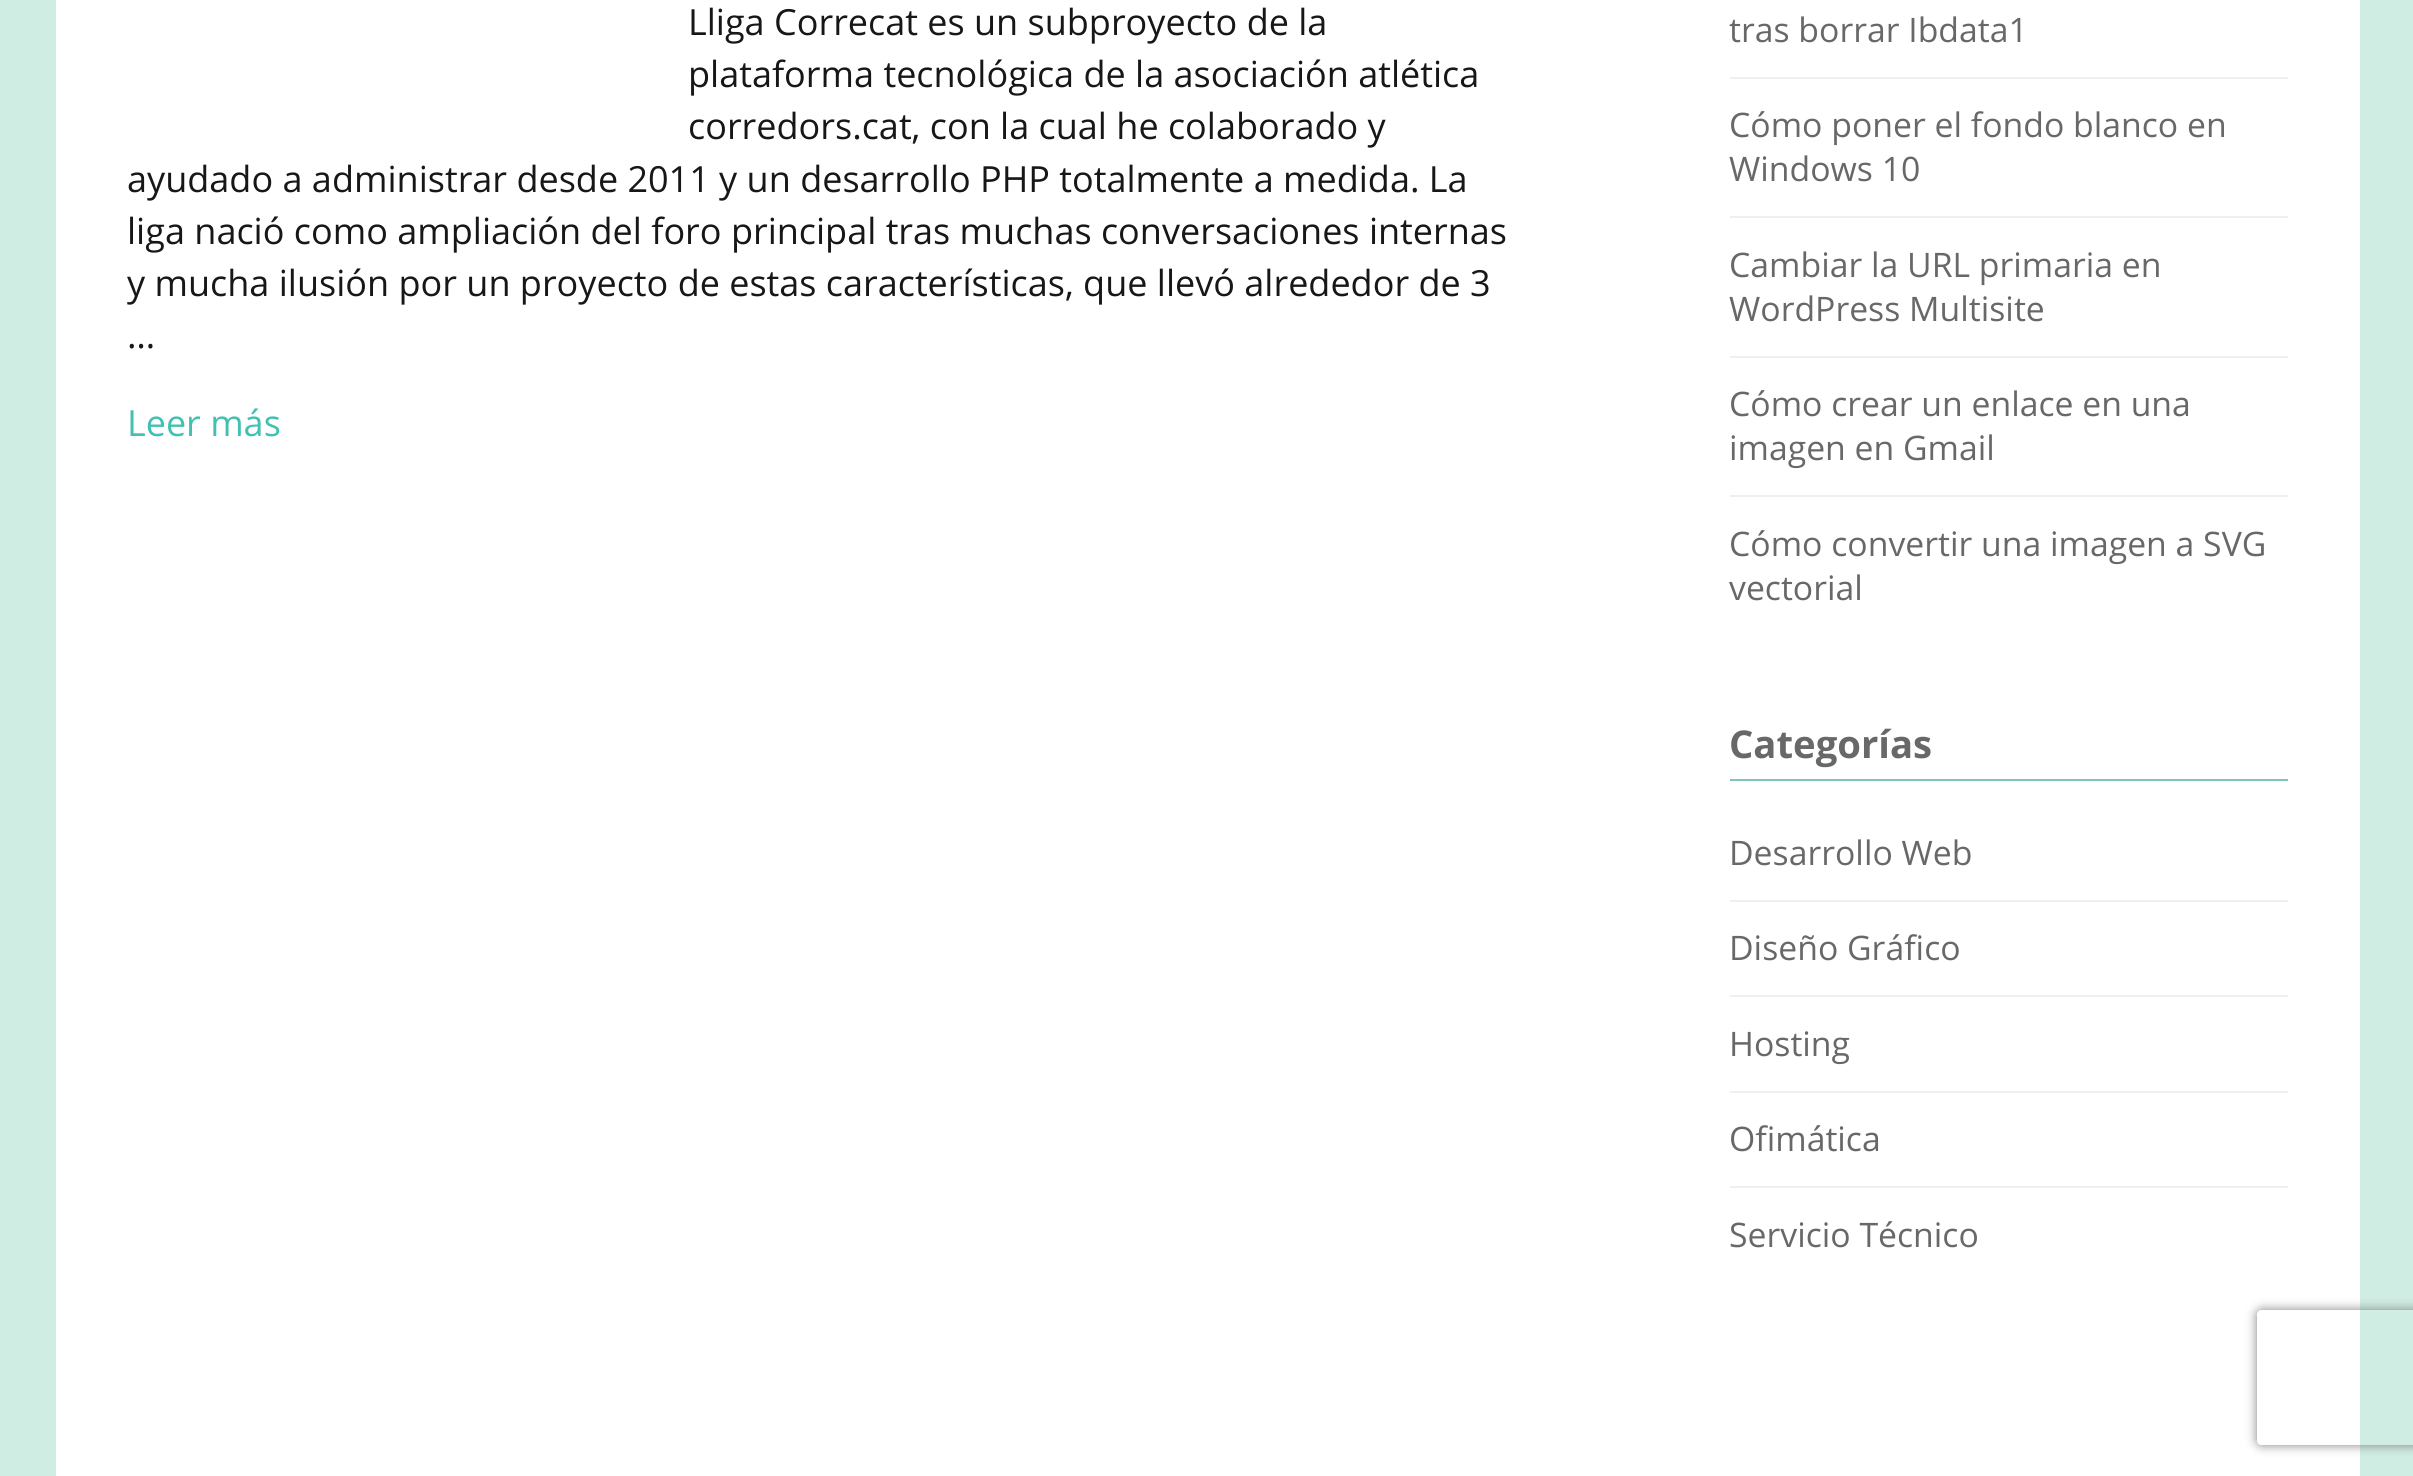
import math
import cairo

surface = cairo.ImageSurface(cairo.Format.RGB24, 2413, 1476)
ctx = cairo.Context(surface)
options = cairo.FontOptions()
options.set_hint_metrics(cairo.HintMetrics.OFF)
options.set_hint_style(cairo.HintStyle.NONE)
ctx.set_font_options(options)
ctx.set_miter_limit(4)


def ink(r, g, b):
    ctx.set_source_rgb(r / 255, g / 255, b / 255)


def write(x, y, s, family, size, color, bold=False, italic=False):
    ctx.select_font_face(family, cairo.FontSlant.ITALIC if italic else cairo.FontSlant.NORMAL, cairo.FontWeight.BOLD if bold else cairo.FontWeight.NORMAL)
    ctx.set_font_size(size)
    ink(*color)
    ctx.move_to(x, y)
    ctx.show_text(s)


def block(x, y, w, h, *color):
    ink(*color)
    ctx.rectangle(x, y, w, h)
    ctx.fill()


def round_path(x, y, w, h, r):
    ctx.new_sub_path()
    for i, (u, v) in enumerate([(x + w - r, y + h - r), (x + r, y + h - r), (x + r, y + r), (x + w - r, y + r)]):
        ctx.arc(u, v, r, i * math.pi / 2, (i + 1) * math.pi / 2)
    ctx.close_path()


def blur_box(x, y, w, h, r, blur, alpha):
    ctx.push_group_with_content(cairo.Content.ALPHA)
    ctx.set_operator(cairo.Operator.SOURCE)
    for i in range(15, -16, -2):
        e = blur * i / 6
        if min(w, h) + 2 * e > 0:
            ctx.set_source_rgba(0, 0, 0, alpha * math.erfc((i - 1) / 8.5) / 2)
            round_path(x - e, y - e, w + 2 * e, h + 2 * e, max(0, min(r + e + blur * .6, min(w, h) / 2 + e)))
            ctx.fill()
    ctx.mask(ctx.pop_group())


s1 = dict(family="Open Sans", size=36, color=(23, 23, 23))
s2 = dict(family="Open Sans", size=36, color=(65, 193, 177))
s3 = dict(family="Open Sans", size=33.75, color=(104, 104, 104))
s4 = dict(family="Open Sans", size=38.25, color=(104, 104, 104), bold=True)

ink(208, 237, 227)
ctx.paint()
block(56, 0, 2304, 1476, 255, 255, 255)
write(688, 35, "Lliga Correcat es un subproyecto de la", **s1)
write(688, 87, "plataforma tecnológica de la asociación atlética", **s1)
write(688, 139, "corredors.cat, con la cual he colaborado y", **s1)
write(127, 192, "ayudado a administrar desde 2011 y un desarrollo PHP totalmente a medida. La", **s1)
write(127, 244, "liga nació como ampliación del foro principal tras muchas conversaciones internas", **s1)
write(127, 296, "y mucha ilusión por un proyecto de estas características, que llevó alrededor de 3", **s1)
write(127, 348, "…", **s1)
write(127, 436, "Leer más", **s2)
block(1730, 77, 558, 2, 239, 239, 239)
write(1729, 42, "tras borrar Ibdata1", **s3)
block(1730, 216, 558, 2, 239, 239, 239)
write(1729, 137, "Cómo poner el fondo blanco en", **s3)
write(1729, 181, "Windows 10", **s3)
block(1730, 356, 558, 2, 239, 239, 239)
write(1729, 277, "Cambiar la URL primaria en", **s3)
write(1729, 321, "WordPress Multisite", **s3)
block(1730, 495, 558, 2, 239, 239, 239)
write(1729, 416, "Cómo crear un enlace en una", **s3)
write(1729, 460, "imagen en Gmail", **s3)
write(1729, 556, "Cómo convertir una imagen a SVG", **s3)
write(1729, 600, "vectorial", **s3)
block(1730, 779, 558, 2, 129, 195, 185)
write(1729, 758, "Categorías", **s4)
block(1730, 900, 558, 2, 239, 239, 239)
write(1729, 865, "Desarrollo Web", **s3)
block(1730, 995, 558, 2, 239, 239, 239)
write(1729, 960, "Diseño Gráfico", **s3)
block(1730, 1091, 558, 2, 239, 239, 239)
write(1729, 1056, "Hosting", **s3)
block(1730, 1186, 558, 2, 239, 239, 239)
write(1729, 1151, "Ofimática", **s3)
write(1729, 1247, "Servicio Técnico", **s3)
ctx.save()
ctx.set_fill_rule(cairo.FillRule.EVEN_ODD)
ctx.new_path()
ctx.move_to(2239, 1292)
ctx.line_to(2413, 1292)
ctx.line_to(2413, 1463)
ctx.line_to(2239, 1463)
ctx.close_path()
ctx.move_to(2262, 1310)
ctx.line_to(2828, 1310)
ctx.curve_to(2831, 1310, 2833, 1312, 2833, 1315)
ctx.line_to(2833, 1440)
ctx.curve_to(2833, 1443, 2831, 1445, 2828, 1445)
ctx.line_to(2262, 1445)
ctx.curve_to(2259, 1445, 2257, 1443, 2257, 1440)
ctx.line_to(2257, 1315)
ctx.curve_to(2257, 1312, 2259, 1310, 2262, 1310)
ctx.close_path()
ctx.clip()
ink(128, 128, 128)
blur_box(2257, 1310, 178, 135, 5, 5.5, 1)
ctx.restore()
surface.write_to_png("screenshot.png")
